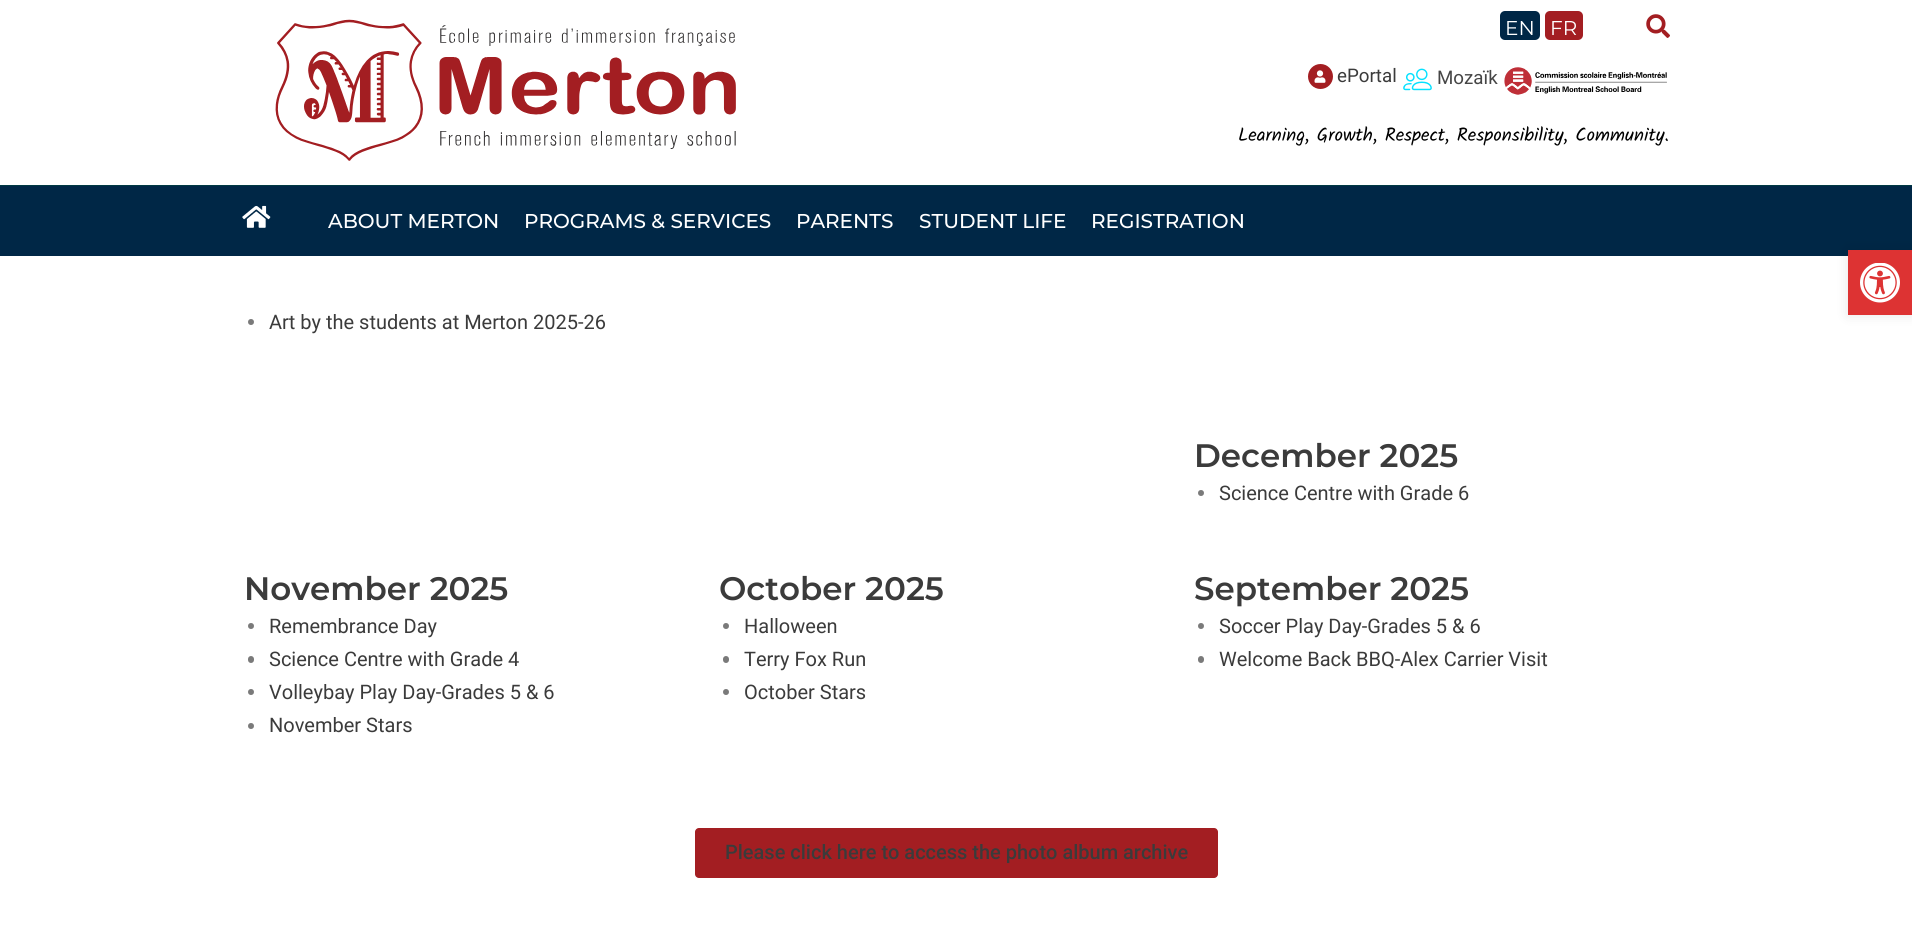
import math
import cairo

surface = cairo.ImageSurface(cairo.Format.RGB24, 1912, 936)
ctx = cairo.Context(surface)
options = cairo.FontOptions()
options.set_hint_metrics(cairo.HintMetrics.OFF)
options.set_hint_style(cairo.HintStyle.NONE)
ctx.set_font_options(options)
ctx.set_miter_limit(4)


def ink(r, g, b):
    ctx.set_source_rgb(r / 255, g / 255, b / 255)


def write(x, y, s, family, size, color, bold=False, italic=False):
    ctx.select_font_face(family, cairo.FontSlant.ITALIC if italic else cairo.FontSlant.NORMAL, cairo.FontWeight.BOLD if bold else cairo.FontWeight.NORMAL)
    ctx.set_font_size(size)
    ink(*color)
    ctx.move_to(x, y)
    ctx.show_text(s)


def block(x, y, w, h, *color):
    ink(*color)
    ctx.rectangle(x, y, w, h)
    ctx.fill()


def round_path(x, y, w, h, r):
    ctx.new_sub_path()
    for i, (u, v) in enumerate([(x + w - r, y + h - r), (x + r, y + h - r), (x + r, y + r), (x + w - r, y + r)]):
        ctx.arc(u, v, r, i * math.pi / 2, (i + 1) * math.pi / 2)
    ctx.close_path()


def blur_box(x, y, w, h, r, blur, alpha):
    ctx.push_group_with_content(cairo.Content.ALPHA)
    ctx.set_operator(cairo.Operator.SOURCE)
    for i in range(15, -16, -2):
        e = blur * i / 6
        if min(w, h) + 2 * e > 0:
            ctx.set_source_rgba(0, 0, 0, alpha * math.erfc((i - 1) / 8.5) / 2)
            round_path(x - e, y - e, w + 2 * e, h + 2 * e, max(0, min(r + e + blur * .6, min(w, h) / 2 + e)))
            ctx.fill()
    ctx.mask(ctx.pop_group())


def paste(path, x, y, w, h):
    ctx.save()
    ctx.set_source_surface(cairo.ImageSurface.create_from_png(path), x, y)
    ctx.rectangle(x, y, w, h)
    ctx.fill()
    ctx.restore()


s1 = dict(family="Montserrat", size=20, color=(255, 255, 255))
s2 = dict(family="Roboto", size=18.75, color=(59, 59, 59))
s3 = dict(family="Roboto", size=18.75, color=(70, 70, 70))
s4 = dict(family="Kalam", size=18.75, color=(0, 0, 0))
s5 = dict(family="Montserrat Medium", size=20, color=(255, 255, 255))
s6 = dict(family="Roboto", size=20, color=(59, 59, 59))
s7 = dict(family="Montserrat SemiBold", size=32.5, color=(59, 59, 59))
s8 = dict(family="Roboto Medium", size=20, color=(59, 59, 59))

ink(255, 255, 255)
ctx.paint()
paste("pic1.png", 275, 19, 461, 142)
ink(0, 39, 70)
round_path(1500, 11, 40, 29, 5)
ctx.fill()
write(1505, 35, "EN", **s1)
ink(163, 30, 34)
round_path(1545, 11, 38, 29, 5)
ctx.fill()
write(1550, 35, "FR", **s1)
paste("pic2.png", 1646, 14, 24, 24)
ink(163, 30, 34)
ctx.arc(1320.5, 76.5, 12.5, 0, 2 * math.pi)
ctx.fill()
paste("pic3.png", 1314, 70, 12, 13)
write(1337, 82, "ePortal", **s2)
paste("pic4.png", 1403, 68, 29, 23)
write(1437, 84, "Mozaïk", **s3)
paste("pic5.png", 1504, 67, 163, 28)
write(1238, 141, "Learning, Growth, Respect, Responsibility, Community.", **s4)
block(0, 185, 1912, 1, 0, 57, 67)
block(0, 186, 1912, 70, 0, 39, 70)
paste("pic6.png", 242, 205, 29, 23)
write(328, 228, "ABOUT MERTON", **s5)
write(524, 228, "PROGRAMS & SERVICES", **s5)
write(796, 228, "PARENTS", **s5)
write(919, 228, "STUDENT LIFE", **s5)
write(1091, 228, "REGISTRATION", **s5)
ink(122, 122, 122)
ctx.new_path()
ctx.arc(251, 322, 3, 0, 2 * math.pi)
ctx.fill()
write(269, 329, "Art by the students at Merton 2025-26", **s6)
write(1194, 467, "December 2025", **s7)
ink(122, 122, 122)
ctx.new_path()
ctx.arc(1201, 493, 3, 0, 2 * math.pi)
ctx.fill()
write(1219, 500, "Science Centre with Grade 6", **s6)
write(244, 600, "November 2025", **s7)
ink(122, 122, 122)
ctx.new_path()
ctx.arc(251, 626, 3, 0, 2 * math.pi)
ctx.fill()
write(269, 633, "Remembrance Day", **s6)
ink(122, 122, 122)
round_path(248, 656, 6, 7, 3)
ctx.fill()
write(269, 666, "Science Centre with Grade 4", **s6)
ink(122, 122, 122)
ctx.new_path()
ctx.arc(251, 692, 3, 0, 2 * math.pi)
ctx.fill()
write(269, 699, "Volleybay Play Day-Grades 5 & 6", **s6)
ink(122, 122, 122)
ctx.new_path()
ctx.arc(251, 726, 3, 0, 2 * math.pi)
ctx.fill()
write(269, 732, "November Stars", **s6)
write(719, 600, "October 2025", **s7)
ink(122, 122, 122)
ctx.new_path()
ctx.arc(726, 626, 3, 0, 2 * math.pi)
ctx.fill()
write(744, 633, "Halloween", **s6)
ink(122, 122, 122)
round_path(723, 656, 6, 7, 3)
ctx.fill()
write(744, 666, "Terry Fox Run", **s6)
ink(122, 122, 122)
ctx.new_path()
ctx.arc(726, 692, 3, 0, 2 * math.pi)
ctx.fill()
write(744, 699, "October Stars", **s6)
write(1194, 600, "September 2025", **s7)
ink(122, 122, 122)
ctx.new_path()
ctx.arc(1201, 626, 3, 0, 2 * math.pi)
ctx.fill()
write(1219, 633, "Soccer Play Day-Grades 5 & 6", **s6)
ink(122, 122, 122)
round_path(1198, 656, 6, 7, 3)
ctx.fill()
write(1219, 666, "Welcome Back BBQ-Alex Carrier Visit", **s6)
ink(163, 30, 34)
round_path(695, 828, 523, 50, 4)
ctx.fill()
write(725, 859, "Please click here to access the photo album archive", **s8)
ink(0, 0, 0)
blur_box(1848, 250, 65, 65, 0, 6, 0.1)
block(1848, 250, 64, 65, 221, 51, 51)
paste("pic7.png", 1860, 263, 40, 40)
surface.write_to_png("screenshot.png")
